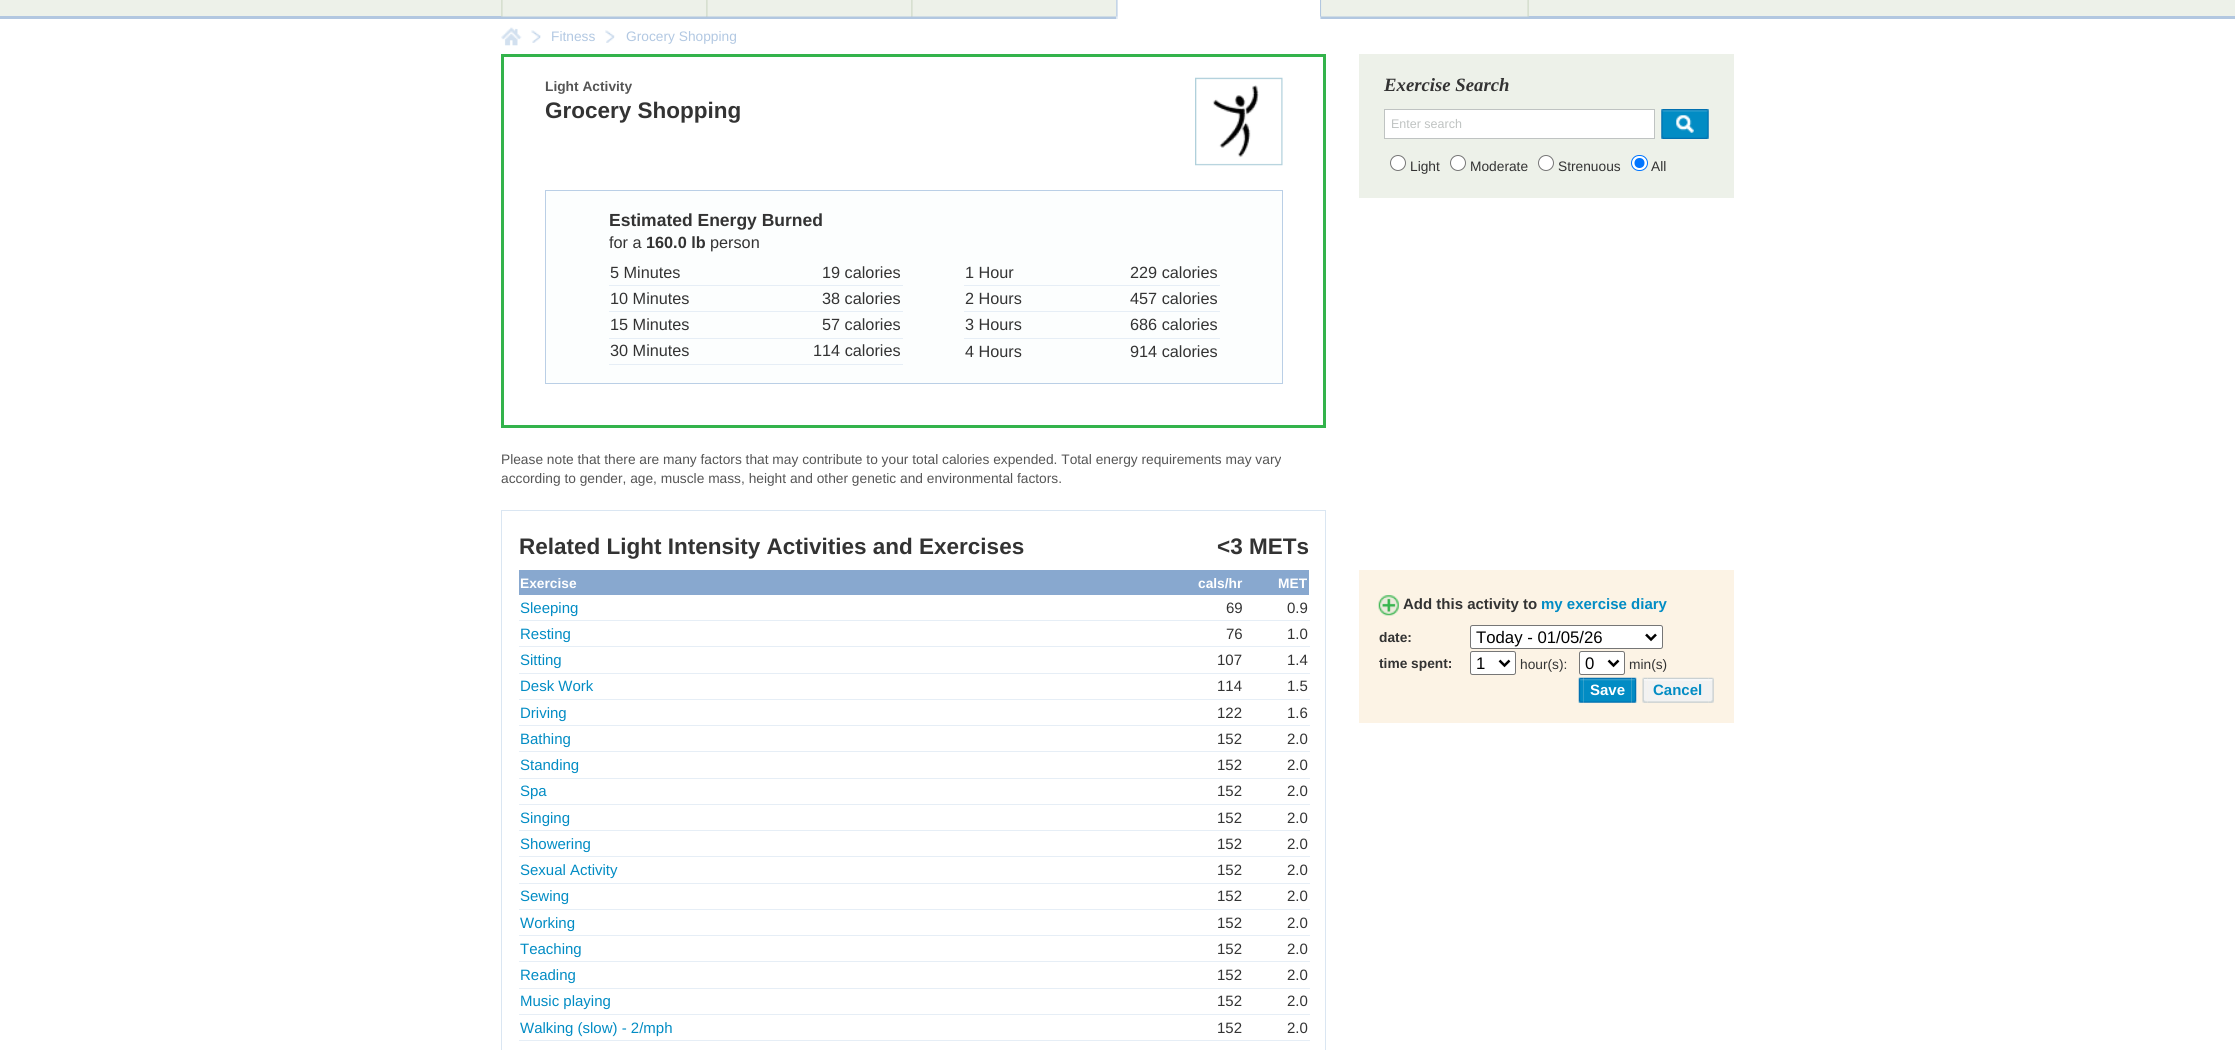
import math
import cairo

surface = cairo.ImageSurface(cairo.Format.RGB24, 2235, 1050)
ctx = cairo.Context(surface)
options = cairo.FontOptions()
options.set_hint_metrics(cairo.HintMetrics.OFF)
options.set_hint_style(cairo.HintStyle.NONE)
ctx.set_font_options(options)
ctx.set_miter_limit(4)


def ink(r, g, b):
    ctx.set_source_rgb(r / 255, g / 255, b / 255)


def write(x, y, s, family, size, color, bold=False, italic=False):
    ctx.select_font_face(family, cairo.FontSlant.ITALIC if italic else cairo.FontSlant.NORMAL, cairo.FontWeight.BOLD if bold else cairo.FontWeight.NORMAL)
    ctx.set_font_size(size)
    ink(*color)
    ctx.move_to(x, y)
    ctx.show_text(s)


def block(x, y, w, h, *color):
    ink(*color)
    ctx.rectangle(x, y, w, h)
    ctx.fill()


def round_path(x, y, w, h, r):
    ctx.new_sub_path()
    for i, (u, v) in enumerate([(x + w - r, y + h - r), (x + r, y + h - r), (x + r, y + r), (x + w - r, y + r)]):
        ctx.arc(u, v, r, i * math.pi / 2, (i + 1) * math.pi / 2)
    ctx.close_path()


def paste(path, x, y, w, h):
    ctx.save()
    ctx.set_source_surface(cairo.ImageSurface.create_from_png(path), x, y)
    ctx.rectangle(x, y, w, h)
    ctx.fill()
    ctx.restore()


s1 = dict(family="Liberation Sans", size=13.75, color=(178, 200, 226))
s2 = dict(family="Liberation Sans", size=13.75, color=(85, 85, 85), bold=True)
s3 = dict(family="Liberation Sans", size=22.5, color=(51, 51, 51), bold=True)
s4 = dict(family="Liberation Sans", size=17.5, color=(51, 51, 51), bold=True)
s5 = dict(family="Liberation Sans", size=16.25, color=(51, 51, 51))
s6 = dict(family="Liberation Sans", size=16.25, color=(51, 51, 51), bold=True)
s7 = dict(family="Liberation Sans", size=13.75, color=(85, 85, 85))
s8 = dict(family="Liberation Sans", size=13.75, color=(255, 255, 255), bold=True)
s9 = dict(family="Liberation Sans", size=15, color=(2, 140, 196))
s10 = dict(family="Liberation Sans", size=15, color=(51, 51, 51))
s11 = dict(family="Liberation Serif", size=18.75, color=(51, 51, 51), bold=True, italic=True)
s12 = dict(family="Liberation Sans", size=12.5, color=(191, 195, 194))
s13 = dict(family="Liberation Sans", size=13.75, color=(51, 51, 51))
s14 = dict(family="Liberation Sans", size=15, color=(51, 51, 51), bold=True)
s15 = dict(family="Liberation Sans", size=15, color=(2, 140, 196), bold=True)
s16 = dict(family="Liberation Sans", size=13.75, color=(51, 51, 51), bold=True)
s17 = dict(family="Liberation Sans", size=16.75, color=(0, 0, 0))
s18 = dict(family="Liberation Sans", size=15, color=(255, 255, 255), bold=True)

ink(255, 255, 255)
ctx.paint()
block(0, 0, 2235, 16, 237, 241, 233)
block(0, 16, 2235, 3, 178, 199, 224)
paste("pic1.png", 501, 16, 206, 1)
paste("pic2.png", 501, 0, 2, 17)
paste("pic3.png", 706, 16, 206, 1)
paste("pic2.png", 706, 0, 2, 17)
paste("pic4.png", 911, 16, 205, 1)
paste("pic2.png", 911, 0, 2, 17)
paste("pic5.png", 1321, 16, 1, 1)
block(1116, 0, 204, 19, 255, 255, 255)
paste("pic6.png", 1116, 0, 2, 19)
paste("pic7.png", 1320, 0, 2, 19)
paste("pic8.png", 1321, 0, 208, 19)
paste("pic9.png", 1527, 0, 2, 17)
paste("pic10.png", 501, 27, 21, 19)
paste("pic11.png", 531, 30, 10, 13)
write(551, 41, "Fitness", **s1)
paste("pic12.png", 605, 30, 10, 13)
write(626, 41, "Grocery Shopping", **s1)
ctx.rectangle(502.5, 55.5, 822, 371)
ink(51, 179, 75)
ctx.set_line_width(3)
ctx.stroke()
write(545, 91, "Light Activity", **s2)
paste("pic13.png", 1195, 77, 88, 89)
write(545, 118, "Grocery Shopping", **s3)
ink(252, 254, 254)
ctx.rectangle(545.5, 190.5, 737, 193)
ctx.fill_preserve()
ink(186, 207, 230)
ctx.set_line_width(1)
ctx.stroke()
write(609, 226, "Estimated Energy Burned", **s4)
write(609, 248, "for a", **s5)
write(646, 248, "160.0 lb", **s6)
write(710, 248, "person", **s5)
write(610, 278, "5 Minutes", **s5)
block(609, 285, 294, 1, 230, 238, 246)
write(822, 278, "19 calories", **s5)
write(965, 278, "1 Hour", **s5)
block(964, 285, 256, 1, 230, 238, 246)
write(1130, 278, "229 calories", **s5)
write(610, 304, "10 Minutes", **s5)
block(609, 311, 294, 1, 230, 238, 246)
write(822, 304, "38 calories", **s5)
write(965, 304, "2 Hours", **s5)
block(964, 311, 256, 1, 230, 238, 246)
write(1130, 304, "457 calories", **s5)
write(610, 330, "15 Minutes", **s5)
block(609, 338, 294, 1, 230, 238, 246)
write(822, 330, "57 calories", **s5)
write(965, 330, "3 Hours", **s5)
block(964, 338, 256, 1, 230, 238, 246)
write(1130, 330, "686 calories", **s5)
write(610, 356, "30 Minutes", **s5)
block(609, 364, 294, 1, 230, 238, 246)
write(813, 356, "114 calories", **s5)
write(965, 357, "4 Hours", **s5)
write(1130, 357, "914 calories", **s5)
write(501, 464, "Please note that there are many factors that may contribute to your total calories expended. Total energy requirements may vary", **s7)
write(501, 483, "according to gender, age, muscle mass, height and other genetic and environmental factors.", **s7)
block(501, 510, 825, 1, 218, 230, 242)
block(1325, 531, 1, 519, 218, 230, 242)
block(1325, 510, 1, 23, 218, 230, 242)
block(501, 531, 1, 519, 218, 230, 242)
block(501, 510, 1, 23, 218, 230, 242)
write(519, 554, "Related Light Intensity Activities and Exercises", **s3)
write(1217, 554, "<3 METs", **s3)
block(519, 570, 790, 25, 136, 168, 207)
write(520, 588, "Exercise", **s8)
write(1198, 588, "cals/hr", **s8)
write(1278, 588, "MET", **s8)
write(520, 613, "Sleeping", **s9)
write(1226, 613, "69", **s10)
block(519, 620, 791, 1, 230, 238, 246)
write(1287, 613, "0.9", **s10)
write(520, 639, "Resting", **s9)
write(1226, 639, "76", **s10)
block(519, 646, 791, 1, 230, 238, 246)
write(1287, 639, "1.0", **s10)
write(520, 665, "Sitting", **s9)
write(1217, 665, "107", **s10)
block(519, 673, 791, 1, 230, 238, 246)
write(1287, 665, "1.4", **s10)
write(520, 691, "Desk Work", **s9)
write(1217, 691, "114", **s10)
block(519, 699, 791, 1, 230, 238, 246)
write(1287, 691, "1.5", **s10)
write(520, 718, "Driving", **s9)
write(1217, 718, "122", **s10)
block(519, 725, 791, 1, 230, 238, 246)
write(1287, 718, "1.6", **s10)
write(520, 744, "Bathing", **s9)
write(1217, 744, "152", **s10)
block(519, 751, 791, 1, 230, 238, 246)
write(1287, 744, "2.0", **s10)
write(520, 770, "Standing", **s9)
write(1217, 770, "152", **s10)
block(519, 778, 791, 1, 230, 238, 246)
write(1287, 770, "2.0", **s10)
write(520, 796, "Spa", **s9)
write(1217, 796, "152", **s10)
block(519, 804, 791, 1, 230, 238, 246)
write(1287, 796, "2.0", **s10)
write(520, 823, "Singing", **s9)
write(1217, 823, "152", **s10)
block(519, 830, 791, 1, 230, 238, 246)
write(1287, 823, "2.0", **s10)
write(520, 849, "Showering", **s9)
write(1217, 849, "152", **s10)
block(519, 856, 791, 1, 230, 238, 246)
write(1287, 849, "2.0", **s10)
write(520, 875, "Sexual Activity", **s9)
write(1217, 875, "152", **s10)
block(519, 883, 791, 1, 230, 238, 246)
write(1287, 875, "2.0", **s10)
write(520, 901, "Sewing", **s9)
write(1217, 901, "152", **s10)
block(519, 909, 791, 1, 230, 238, 246)
write(1287, 901, "2.0", **s10)
write(520, 928, "Working", **s9)
write(1217, 928, "152", **s10)
block(519, 935, 791, 1, 230, 238, 246)
write(1287, 928, "2.0", **s10)
write(520, 954, "Teaching", **s9)
write(1217, 954, "152", **s10)
block(519, 961, 791, 1, 230, 238, 246)
write(1287, 954, "2.0", **s10)
write(520, 980, "Reading", **s9)
write(1217, 980, "152", **s10)
block(519, 988, 791, 1, 230, 238, 246)
write(1287, 980, "2.0", **s10)
write(520, 1006, "Music playing", **s9)
write(1217, 1006, "152", **s10)
block(519, 1014, 791, 1, 230, 238, 246)
write(1287, 1006, "2.0", **s10)
write(520, 1033, "Walking (slow) - 2/mph", **s9)
write(1217, 1033, "152", **s10)
block(519, 1040, 791, 1, 230, 238, 246)
write(1287, 1033, "2.0", **s10)
block(1359, 54, 375, 144, 237, 241, 233)
write(1384, 91, "Exercise Search", **s11)
ink(255, 255, 255)
ctx.rectangle(1384.5, 109.5, 270, 29)
ctx.fill_preserve()
ink(191, 195, 194)
ctx.stroke()
write(1391, 128, "Enter search", **s12)
paste("pic14.png", 1661, 109, 48, 30)
ink(255, 255, 255)
ctx.arc(1398, 163, 7.5, 0, 2 * math.pi)
ctx.fill_preserve()
ink(118, 118, 118)
ctx.stroke()
write(1410, 171, "Light", **s13)
ink(255, 255, 255)
ctx.new_path()
ctx.arc(1458, 163, 7.5, 0, 2 * math.pi)
ctx.fill_preserve()
ink(118, 118, 118)
ctx.stroke()
write(1470, 171, "Moderate", **s13)
ink(255, 255, 255)
ctx.new_path()
ctx.arc(1546, 163, 7.5, 0, 2 * math.pi)
ctx.fill_preserve()
ink(118, 118, 118)
ctx.stroke()
write(1558, 171, "Strenuous", **s13)
ink(255, 255, 255)
round_path(1631.5, 155.5, 16, 15, 7.5)
ctx.fill_preserve()
ink(0, 117, 255)
ctx.stroke()
ctx.arc(1639.5, 163, 5, 0, 2 * math.pi)
ctx.fill()
write(1651, 171, "All", **s13)
block(1359, 570, 375, 153, 252, 243, 229)
paste("pic15.png", 1378, 595, 21, 21)
write(1403, 609, "Add this activity to", **s14)
write(1541, 609, "my exercise diary", **s15)
write(1379, 642, "date:", **s16)
ink(255, 255, 255)
round_path(1470.5, 625.5, 192, 23, 2)
ctx.fill_preserve()
ink(118, 118, 118)
ctx.stroke()
ctx.new_path()
ctx.move_to(1646, 634.5)
ctx.line_to(1651, 639.5)
ctx.line_to(1656, 634.5)
ink(0, 0, 0)
ctx.set_line_width(2.5)
ctx.stroke()
write(1476, 643, "Today - 01/05/26", **s17)
write(1379, 668, "time spent:", **s16)
ink(255, 255, 255)
round_path(1470.5, 651.5, 45, 23, 2)
ctx.fill_preserve()
ink(118, 118, 118)
ctx.set_line_width(1)
ctx.stroke()
ctx.new_path()
ctx.move_to(1499.5, 660.5)
ctx.line_to(1504.5, 665.5)
ctx.line_to(1509.5, 660.5)
ink(0, 0, 0)
ctx.set_line_width(2.5)
ctx.stroke()
write(1476, 669, "1", **s17)
write(1520, 669, "hour(s):", **s13)
ink(255, 255, 255)
round_path(1579.5, 651.5, 45, 23, 2)
ctx.fill_preserve()
ink(118, 118, 118)
ctx.set_line_width(1)
ctx.stroke()
ctx.new_path()
ctx.move_to(1608.5, 660.5)
ctx.line_to(1613.5, 665.5)
ctx.line_to(1618.5, 660.5)
ink(0, 0, 0)
ctx.set_line_width(2.5)
ctx.stroke()
write(1585, 669, "0", **s17)
write(1629, 669, "min(s)", **s13)
paste("pic16.png", 1578, 677, 6, 26)
paste("pic17.png", 1583, 677, 49, 26)
write(1590, 695, "Save", **s18)
paste("pic18.png", 1631, 677, 6, 26)
paste("pic19.png", 1642, 677, 6, 26)
paste("pic20.png", 1647, 677, 62, 26)
write(1653, 695, "Cancel", **s15)
paste("pic21.png", 1708, 677, 6, 26)
surface.write_to_png("screenshot.png")
